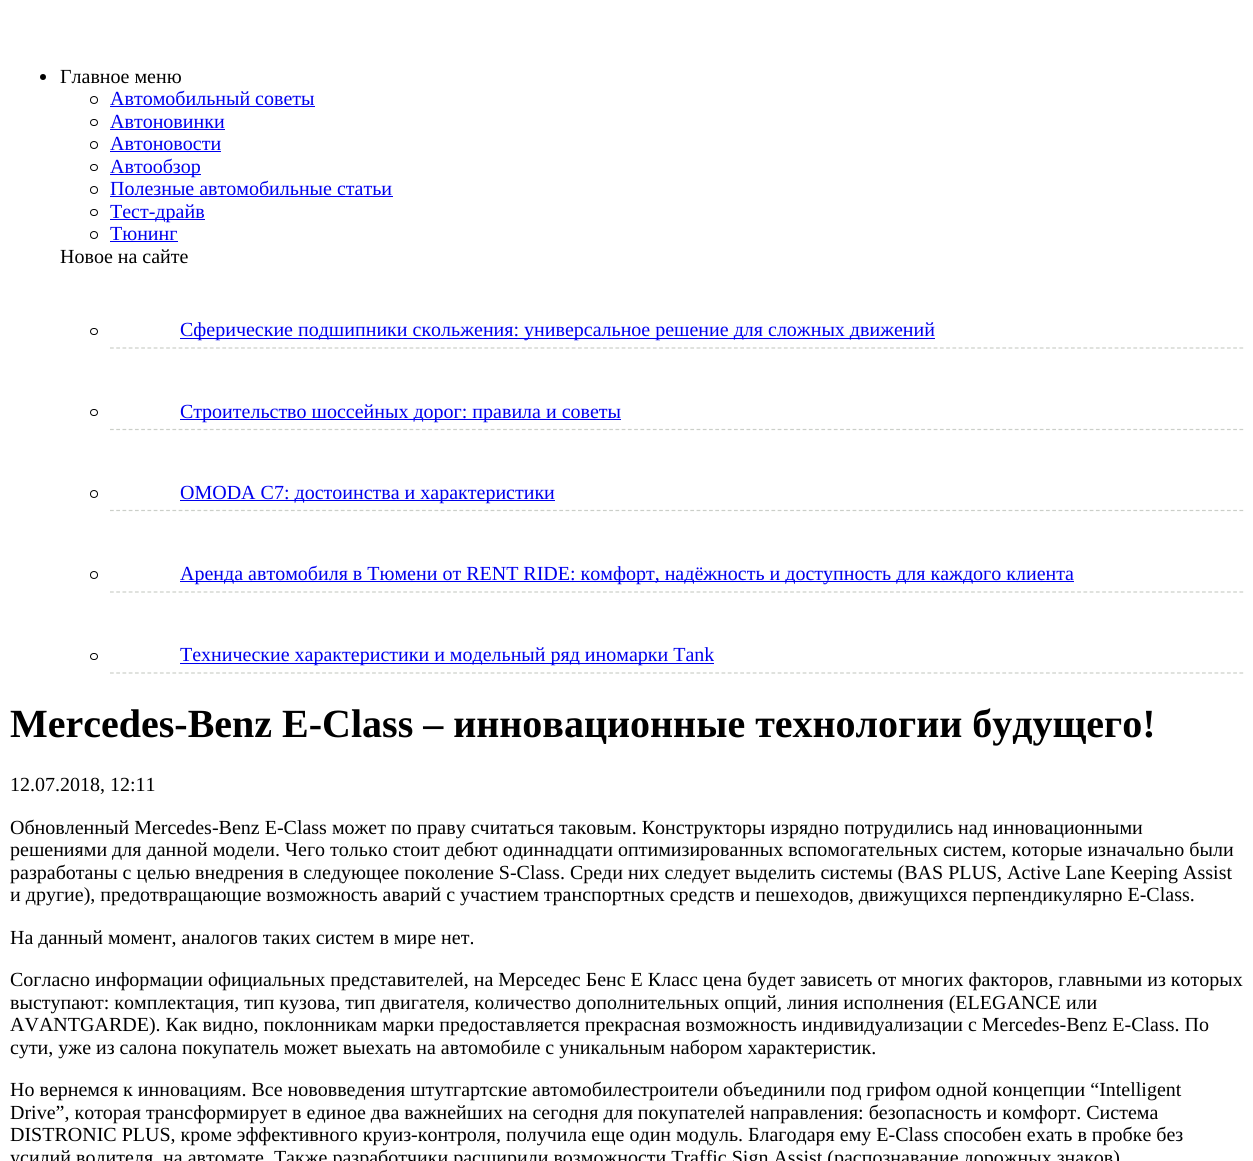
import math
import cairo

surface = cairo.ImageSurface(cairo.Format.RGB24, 1253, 1161)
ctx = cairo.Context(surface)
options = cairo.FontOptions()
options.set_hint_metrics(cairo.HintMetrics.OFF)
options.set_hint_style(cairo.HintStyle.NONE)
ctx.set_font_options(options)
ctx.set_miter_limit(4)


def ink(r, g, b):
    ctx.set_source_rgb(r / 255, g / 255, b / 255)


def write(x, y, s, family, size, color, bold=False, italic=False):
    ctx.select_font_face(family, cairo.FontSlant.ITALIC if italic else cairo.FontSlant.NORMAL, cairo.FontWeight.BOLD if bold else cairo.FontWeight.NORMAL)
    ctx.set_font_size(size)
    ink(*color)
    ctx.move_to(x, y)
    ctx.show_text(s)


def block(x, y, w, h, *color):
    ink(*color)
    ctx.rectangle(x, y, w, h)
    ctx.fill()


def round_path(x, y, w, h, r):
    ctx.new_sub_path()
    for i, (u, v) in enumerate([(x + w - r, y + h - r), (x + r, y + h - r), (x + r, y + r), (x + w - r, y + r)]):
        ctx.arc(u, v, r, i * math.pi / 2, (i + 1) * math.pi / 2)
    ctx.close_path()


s1 = dict(family="Liberation Serif", size=20, color=(0, 0, 0))
s2 = dict(family="Liberation Serif", size=20, color=(0, 0, 238))
s3 = dict(family="Liberation Serif", size=40, color=(0, 0, 0), bold=True)

ink(255, 255, 255)
ctx.paint()
ink(0, 0, 0)
ctx.arc(43, 77, 3, 0, 2 * math.pi)
ctx.fill()
write(60, 83, "Главное меню", **s1)
ctx.new_path()
ctx.arc(94, 100, 3.5, 0, 2 * math.pi)
ctx.set_line_width(1)
ctx.stroke()
write(110, 105, "Автомобильный советы", **s2)
block(110, 106, 205, 1, 0, 0, 238)
round_path(90.5, 119.5, 7, 6, 3)
ink(0, 0, 0)
ctx.stroke()
write(110, 128, "Автоновинки", **s2)
block(110, 129, 115, 1, 0, 0, 238)
ctx.new_path()
ctx.arc(94, 145, 3.5, 0, 2 * math.pi)
ink(0, 0, 0)
ctx.stroke()
write(110, 150, "Автоновости", **s2)
block(110, 151, 111, 1, 0, 0, 238)
round_path(90.5, 164.5, 7, 6, 3)
ink(0, 0, 0)
ctx.stroke()
block(110, 174, 91, 1, 0, 0, 238)
write(110, 173, "Автообзор", **s2)
ctx.new_path()
ctx.arc(94, 190, 3.5, 0, 2 * math.pi)
ink(0, 0, 0)
ctx.stroke()
write(110, 195, "Полезные автомобильные статьи", **s2)
block(110, 196, 283, 1, 0, 0, 238)
round_path(90.5, 209.5, 7, 6, 3)
ink(0, 0, 0)
ctx.stroke()
block(110, 219, 95, 1, 0, 0, 238)
write(110, 218, "Тест-драйв", **s2)
ctx.new_path()
ctx.arc(94, 235, 3.5, 0, 2 * math.pi)
ink(0, 0, 0)
ctx.stroke()
write(110, 240, "Тюнинг", **s2)
block(110, 241, 68, 1, 0, 0, 238)
write(60, 263, "Новое на сайте", **s1)
round_path(90.5, 328.5, 7, 6, 3)
ctx.stroke()
ctx.new_path()
ctx.move_to(110, 348)
ctx.line_to(1244, 348)
ink(203, 207, 201)
ctx.set_line_width(1.2)
ctx.set_dash([3.75, 2.49])
ctx.stroke()
block(180, 338, 755, 1, 0, 0, 238)
write(180, 336, "Сферические подшипники скольжения: универсальное решение для сложных движений", **s2)
round_path(90.5, 409.5, 7, 6, 3)
ink(0, 0, 0)
ctx.set_line_width(1)
ctx.set_dash([])
ctx.stroke()
ctx.new_path()
ctx.move_to(110, 429.5)
ctx.line_to(1244, 429.5)
ink(203, 207, 201)
ctx.set_line_width(1.2)
ctx.set_dash([3.75, 2.49])
ctx.stroke()
block(180, 419, 441, 1, 0, 0, 238)
write(180, 418, "Строительство шоссейных дорог: правила и советы", **s2)
ctx.new_path()
ctx.arc(94, 494, 3.5, 0, 2 * math.pi)
ink(0, 0, 0)
ctx.set_line_width(1)
ctx.set_dash([])
ctx.stroke()
ctx.new_path()
ctx.move_to(110, 510.5)
ctx.line_to(1244, 510.5)
ink(203, 207, 201)
ctx.set_line_width(1.2)
ctx.set_dash([3.75, 2.49])
ctx.stroke()
block(180, 500, 375, 1, 0, 0, 238)
write(180, 499, "OMODA С7: достоинства и характеристики", **s2)
ctx.new_path()
ctx.arc(94, 575, 3.5, 0, 2 * math.pi)
ink(0, 0, 0)
ctx.set_line_width(1)
ctx.set_dash([])
ctx.stroke()
ctx.new_path()
ctx.move_to(110, 592)
ctx.line_to(1244, 592)
ink(203, 207, 201)
ctx.set_line_width(1.2)
ctx.set_dash([3.75, 2.49])
ctx.stroke()
block(180, 581, 894, 1, 0, 0, 238)
write(180, 580, "Аренда автомобиля в Тюмени от RENT RIDE: комфорт, надёжность и доступность для каждого клиента", **s2)
round_path(90.5, 653.5, 7, 6, 3)
ink(0, 0, 0)
ctx.set_line_width(1)
ctx.set_dash([])
ctx.stroke()
ctx.new_path()
ctx.move_to(110, 673)
ctx.line_to(1244, 673)
ink(203, 207, 201)
ctx.set_line_width(1.2)
ctx.set_dash([3.75, 2.49])
ctx.stroke()
block(180, 663, 534, 1, 0, 0, 238)
write(180, 661, "Технические характеристики и модельный ряд иномарки Tank", **s2)
write(10, 737, "Mercedes-Benz Е-Class – инновационные технологии будущего!", **s3)
write(10, 791, "12.07.2018, 12:11", **s1)
write(10, 834, "Обновленный Mercedes-Benz Е-Class может по праву считаться таковым. Конструкторы изрядно потрудились над инновационными", **s1)
write(10, 856, "решениями для данной модели. Чего только стоит дебют одиннадцати оптимизированных вспомогательных систем, которые изначально были", **s1)
write(10, 879, "разработаны с целью внедрения в следующее поколение S-Class. Среди них следует выделить системы (BAS PLUS, Active Lane Keeping Assist", **s1)
write(10, 901, "и другие), предотвращающие возможность аварий с участием транспортных средств и пешеходов, движущихся перпендикулярно Е-Class.", **s1)
write(10, 944, "На данный момент, аналогов таких систем в мире нет.", **s1)
write(10, 986, "Согласно информации официальных представителей, на Мерседес Бенс Е Класс цена будет зависеть от многих факторов, главными из которых", **s1)
write(10, 1009, "выступают: комплектация, тип кузова, тип двигателя, количество дополнительных опций, линия исполнения (ELEGANCE или", **s1)
write(10, 1031, "AVANTGARDE). Как видно, поклонникам марки предоставляется прекрасная возможность индивидуализации с Mercedes-Benz Е-Class. По", **s1)
write(10, 1054, "сути, уже из салона покупатель может выехать на автомобиле с уникальным набором характеристик.", **s1)
write(10, 1096, "Но вернемся к инновациям. Все нововведения штутгартские автомобилестроители объединили под грифом одной концепции “Intelligent", **s1)
write(10, 1119, "Drive”, которая трансформирует в единое два важнейших на сегодня для покупателей направления: безопасность и комфорт. Система", **s1)
write(10, 1141, "DISTRONIC PLUS, кроме эффективного круиз-контроля, получила еще один модуль. Благодаря ему Е-Сlass способен ехать в пробке без", **s1)
write(10, 1164, "усилий водителя, на автомате. Также разработчики расширили возможности Traffic Sign Assist (распознавание дорожных знаков)", **s1)
surface.write_to_png("screenshot.png")
